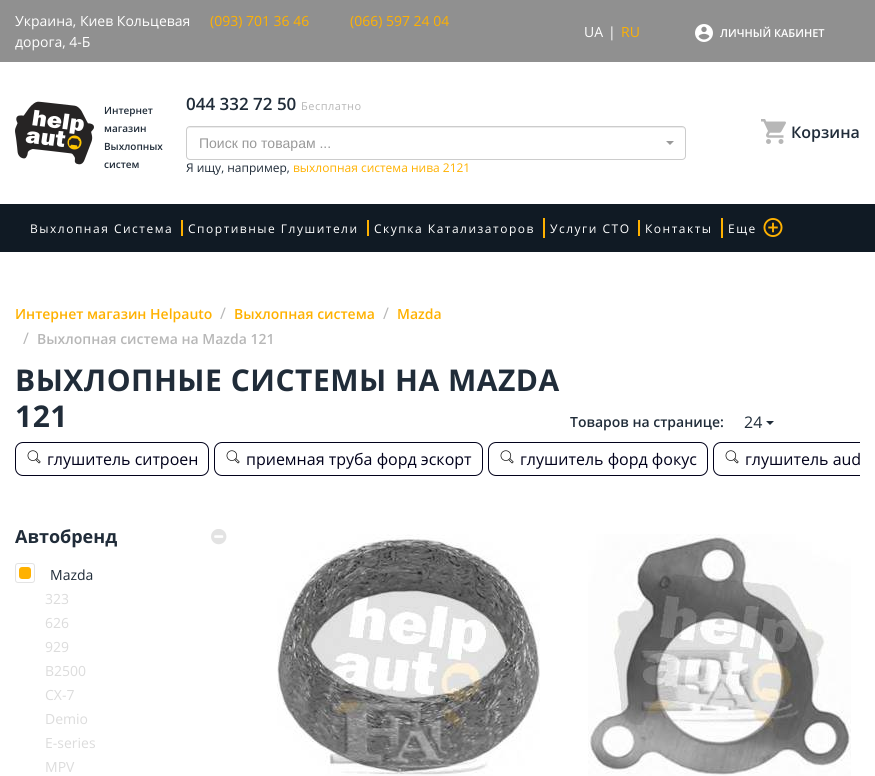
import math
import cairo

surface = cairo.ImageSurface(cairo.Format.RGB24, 875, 776)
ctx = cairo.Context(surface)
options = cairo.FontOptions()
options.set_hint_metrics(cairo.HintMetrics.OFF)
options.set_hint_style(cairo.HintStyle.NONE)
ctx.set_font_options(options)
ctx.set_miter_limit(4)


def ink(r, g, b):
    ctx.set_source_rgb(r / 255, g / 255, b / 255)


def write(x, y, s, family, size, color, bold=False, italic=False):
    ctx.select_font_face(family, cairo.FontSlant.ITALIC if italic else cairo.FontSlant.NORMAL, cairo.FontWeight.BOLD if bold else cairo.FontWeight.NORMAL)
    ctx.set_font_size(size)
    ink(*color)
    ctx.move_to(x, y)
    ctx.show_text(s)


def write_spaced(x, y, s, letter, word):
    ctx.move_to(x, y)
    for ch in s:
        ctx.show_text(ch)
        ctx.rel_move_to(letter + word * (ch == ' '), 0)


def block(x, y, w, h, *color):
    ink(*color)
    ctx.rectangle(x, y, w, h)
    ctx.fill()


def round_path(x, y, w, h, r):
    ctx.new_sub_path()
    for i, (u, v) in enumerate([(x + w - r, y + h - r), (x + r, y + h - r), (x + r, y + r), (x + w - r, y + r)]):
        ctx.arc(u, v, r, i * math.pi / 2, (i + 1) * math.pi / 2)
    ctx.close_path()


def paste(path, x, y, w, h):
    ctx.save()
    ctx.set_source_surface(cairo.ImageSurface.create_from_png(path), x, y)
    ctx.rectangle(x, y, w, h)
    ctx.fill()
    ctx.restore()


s1 = dict(family="Open Sans", size=14, color=(255, 255, 255))
s2 = dict(family="Open Sans", size=14, color=(255, 177, 0))
s3 = dict(family="Open Sans SemiBold", size=11, color=(255, 255, 255))
s4 = dict(family="Open Sans SemiBold", size=10, color=(32, 44, 57))
s5 = dict(family="Open Sans SemiBold", size=17, color=(32, 44, 57))
s6 = dict(family="Liberation Sans", size=14, color=(153, 153, 153))
s7 = dict(family="Open Sans", size=12, color=(32, 44, 57))
s8 = dict(family="Open Sans", size=12, color=(255, 177, 0))
s9 = dict(family="Open Sans SemiBold", size=16, color=(32, 44, 57))
s10 = dict(family="Open Sans SemiBold", size=14, color=(255, 177, 0))
s11 = dict(family="Open Sans", size=16, color=(183, 183, 183))
s12 = dict(family="Open Sans SemiBold", size=14, color=(183, 183, 183))
s13 = dict(family="Open Sans SemiBold", size=14, color=(32, 44, 57))
s14 = dict(family="Open Sans", size=16, color=(32, 44, 57))
s15 = dict(family="Open Sans", size=16, color=(1, 1, 27))
s16 = dict(family="Open Sans", size=18, color=(32, 44, 57), bold=True)
s17 = dict(family="Open Sans", size=14, color=(32, 44, 57))
s18 = dict(family="Open Sans", size=14, color=(220, 220, 220))

ink(255, 255, 255)
ctx.paint()
block(0, 0, 875, 62, 144, 144, 144)
write(15, 26, "Украина, Киев Кольцевая", **s1)
write(15, 47, "дорога, 4-Б", **s1)
write(210, 26, "(093) 701 36 46", **s2)
write(350, 26, "(066) 597 24 04", **s2)
write(584, 37, "UA", **s1)
write(608, 37, "|", **s1)
write(621, 37, "RU", **s2)
paste("pic1.png", 695, 24, 18, 18)
write(720, 37, "ЛИЧНЫЙ КАБИНЕТ", **s3)
paste("pic2.png", 15, 101, 79, 64)
write(104, 114, "Интернет", **s4)
write(104, 132, "магазин", **s4)
write(104, 150, "Выхлопных", **s4)
write(104, 168, "систем", **s4)
write(186, 110, "044 332 72 50", **s5)
ctx.select_font_face("Open Sans")
ctx.set_font_size(11)
ink(183, 183, 183)
write_spaced(301, 110, "Бесплатно", 0.5, 0)
ink(236, 236, 236)
ctx.new_path()
ctx.move_to(190, 128)
ctx.line_to(682, 128)
ctx.curve_to(684, 128, 685, 129, 685, 131)
ctx.curve_to(685, 129, 684, 127, 682, 127)
ctx.line_to(190, 127)
ctx.curve_to(188, 127, 187, 129, 187, 131)
ctx.curve_to(187, 129, 188, 128, 190, 128)
ctx.close_path()
ctx.fill()
round_path(186.5, 126.5, 499, 33, 3.5)
ink(204, 204, 204)
ctx.set_line_width(1)
ctx.stroke()
write(199, 148, "Поиск по товарам ...", **s6)
ctx.new_path()
ctx.move_to(666, 141)
ctx.line_to(674, 141)
ctx.line_to(670, 145)
ctx.close_path()
ctx.fill()
write(186, 172, "Я ищу, например,", **s7)
write(293, 172, "выхлопная система нива 2121", **s8)
paste("pic3.png", 761, 119, 25, 25)
write(791, 138, "Корзина", **s9)
block(0, 204, 875, 48, 16, 26, 36)
ctx.select_font_face("Open Sans")
ctx.set_font_size(12)
ink(255, 255, 255)
write_spaced(30, 233, "Выхлопная Система", 1.5, 0)
block(181, 220, 2, 16, 255, 177, 0)
ink(255, 255, 255)
write_spaced(188, 233, "Спортивные Глушители", 1.5, 0)
block(367, 220, 2, 16, 255, 177, 0)
ink(255, 255, 255)
write_spaced(374, 233, "Скупка Катализаторов", 1.5, 0)
block(543, 218, 2, 20, 255, 177, 0)
ink(255, 255, 255)
write_spaced(550, 233, "Услуги СТО", 1.5, 0)
block(638, 220, 2, 16, 255, 177, 0)
ink(255, 255, 255)
write_spaced(645, 233, "Контакты", 1.5, 0)
block(721, 218, 2, 20, 255, 177, 0)
ink(255, 255, 255)
write_spaced(728, 233, "Еще", 1.5, 0)
paste("pic4.png", 763, 218, 20, 19)
write(15, 319, "Интернет магазин Helpauto", **s10)
write(220, 319, "/", **s11)
write(234, 319, "Выхлопная система", **s10)
write(383, 319, "/", **s11)
write(397, 319, "Mazda", **s10)
write(23, 344, "/", **s11)
write(37, 344, "Выхлопная система на Mazda 121", **s12)
ctx.select_font_face("Open Sans", cairo.FontSlant.NORMAL, cairo.FontWeight.BOLD)
ctx.set_font_size(30)
ink(32, 44, 57)
write_spaced(15, 391, "ВЫХЛОПНЫЕ СИСТЕМЫ НА MAZDA", 0.5, 0)
write_spaced(15, 427, "121", 0.5, 0)
write(570, 427, "Товаров на странице:", **s13)
write(744, 428, "24", **s14)
ctx.new_path()
ctx.move_to(766, 421)
ctx.line_to(774, 421)
ctx.line_to(770, 425)
ctx.close_path()
ctx.fill()
round_path(15.5, 442.5, 193, 33, 7.5)
ink(1, 1, 27)
ctx.stroke()
paste("pic5.png", 27, 450, 14, 14)
write(47, 465, "глушитель ситроен", **s15)
round_path(214.5, 442.5, 268, 33, 7.5)
ctx.stroke()
paste("pic5.png", 226, 450, 14, 14)
write(246, 465, "приемная труба форд эскорт", **s15)
round_path(488.5, 442.5, 219, 33, 7.5)
ctx.stroke()
paste("pic5.png", 500, 450, 14, 14)
write(520, 465, "глушитель форд фокус", **s15)
ctx.save()
ctx.rectangle(15, 442, 845, 34)
ctx.clip()
round_path(713.5, 442.5, 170, 33, 7.5)
ctx.stroke()
ctx.restore()
paste("pic5.png", 725, 450, 14, 14)
write(745, 465, "глушитель aud", **s15)
write(15, 543, "Автобренд", **s16)
paste("pic6.png", 211, 529, 16, 16)
round_path(15.5, 563.5, 19, 19, 2.5)
ink(227, 227, 227)
ctx.stroke()
ink(255, 177, 0)
round_path(19, 567, 12, 12, 3)
ctx.fill()
write(50, 580, "Mazda", **s17)
write(45, 604, "323", **s18)
write(45, 628, "626", **s18)
write(45, 652, "929", **s18)
write(45, 676, "B2500", **s18)
write(45, 700, "CX-7", **s18)
write(45, 724, "Demio", **s18)
write(45, 748, "E-series", **s18)
write(45, 772, "MPV", **s18)
paste("pic7.png", 277, 534, 263, 242)
paste("pic8.png", 588, 534, 263, 242)
surface.write_to_png("screenshot.png")
